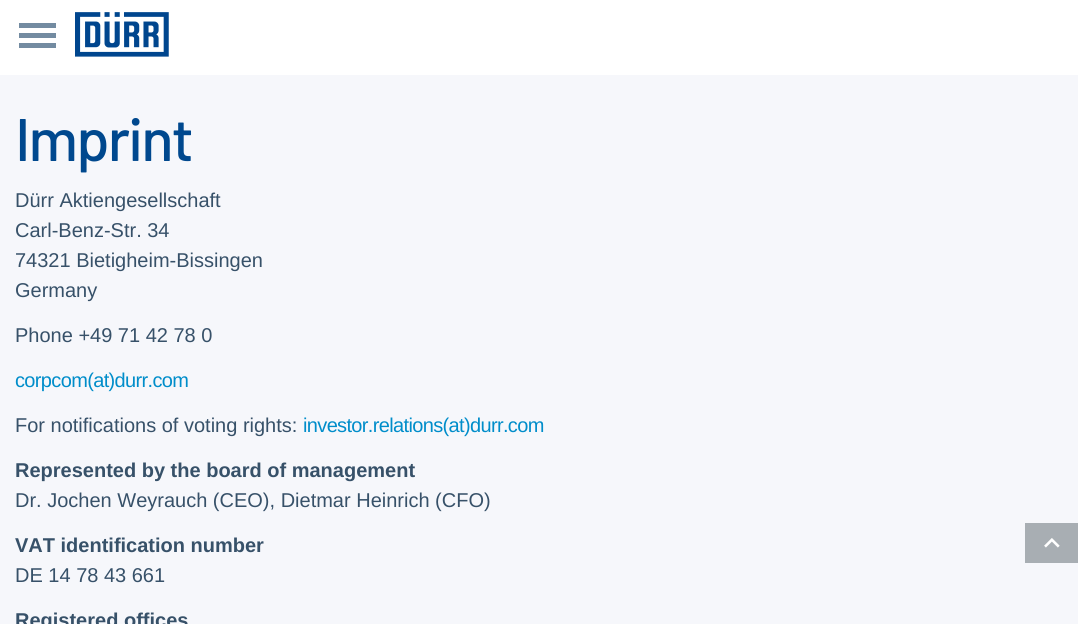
import math
import cairo

surface = cairo.ImageSurface(cairo.Format.RGB24, 1078, 624)
ctx = cairo.Context(surface)
options = cairo.FontOptions()
options.set_hint_metrics(cairo.HintMetrics.OFF)
options.set_hint_style(cairo.HintStyle.NONE)
ctx.set_font_options(options)
ctx.set_miter_limit(4)


def ink(r, g, b):
    ctx.set_source_rgb(r / 255, g / 255, b / 255)


def write(x, y, s, family, size, color, bold=False, italic=False):
    ctx.select_font_face(family, cairo.FontSlant.ITALIC if italic else cairo.FontSlant.NORMAL, cairo.FontWeight.BOLD if bold else cairo.FontWeight.NORMAL)
    ctx.set_font_size(size)
    ink(*color)
    ctx.move_to(x, y)
    ctx.show_text(s)


def write_spaced(x, y, s, letter, word):
    ctx.move_to(x, y)
    for ch in s:
        ctx.show_text(ch)
        ctx.rel_move_to(letter + word * (ch == ' '), 0)


def block(x, y, w, h, *color):
    ink(*color)
    ctx.rectangle(x, y, w, h)
    ctx.fill()


def paste(path, x, y, w, h):
    ctx.save()
    ctx.set_source_surface(cairo.ImageSurface.create_from_png(path), x, y)
    ctx.rectangle(x, y, w, h)
    ctx.fill()
    ctx.restore()


s1 = dict(family="Liberation Sans", size=20, color=(55, 81, 105))
s2 = dict(family="Liberation Sans", size=20, color=(55, 81, 105), bold=True)

ink(246, 247, 251)
ctx.paint()
block(0, 0, 1078, 75, 255, 255, 255)
block(19, 23, 37, 5, 115, 139, 161)
block(19, 33, 37, 5, 115, 139, 161)
block(19, 43, 37, 5, 115, 139, 161)
paste("pic1.png", 75, 12, 94, 45)
ctx.select_font_face("Barlow Medium")
ctx.set_font_size(60)
ink(0, 72, 142)
write_spaced(15, 161, "Imprint", -2, 0)
write(15, 207, "Dürr Aktiengesellschaft", **s1)
write(15, 237, "Carl-Benz-Str. 34", **s1)
write(15, 267, "74321 Bietigheim-Bissingen", **s1)
write(15, 297, "Germany", **s1)
write(15, 342, "Phone +49 71 42 78 0", **s1)
ink(0, 141, 202)
write_spaced(15, 387, "corpcom(at)durr.com", -0.65, 0)
write(15, 432, "For notifications of voting rights:", **s1)
ink(0, 141, 202)
write_spaced(303, 432, "investor.relations(at)durr.com", -0.65, 0)
write(15, 477, "Represented by the board of management", **s2)
write(15, 507, "Dr. Jochen Weyrauch (CEO), Dietmar Heinrich (CFO)", **s1)
write(15, 552, "VAT identification number", **s2)
write(15, 582, "DE 14 78 43 661", **s1)
write(15, 627, "Registered offices", **s2)
block(1025, 523, 53, 40, 168, 174, 179)
paste("pic2.png", 1044, 538, 16, 10)
surface.write_to_png("screenshot.png")
